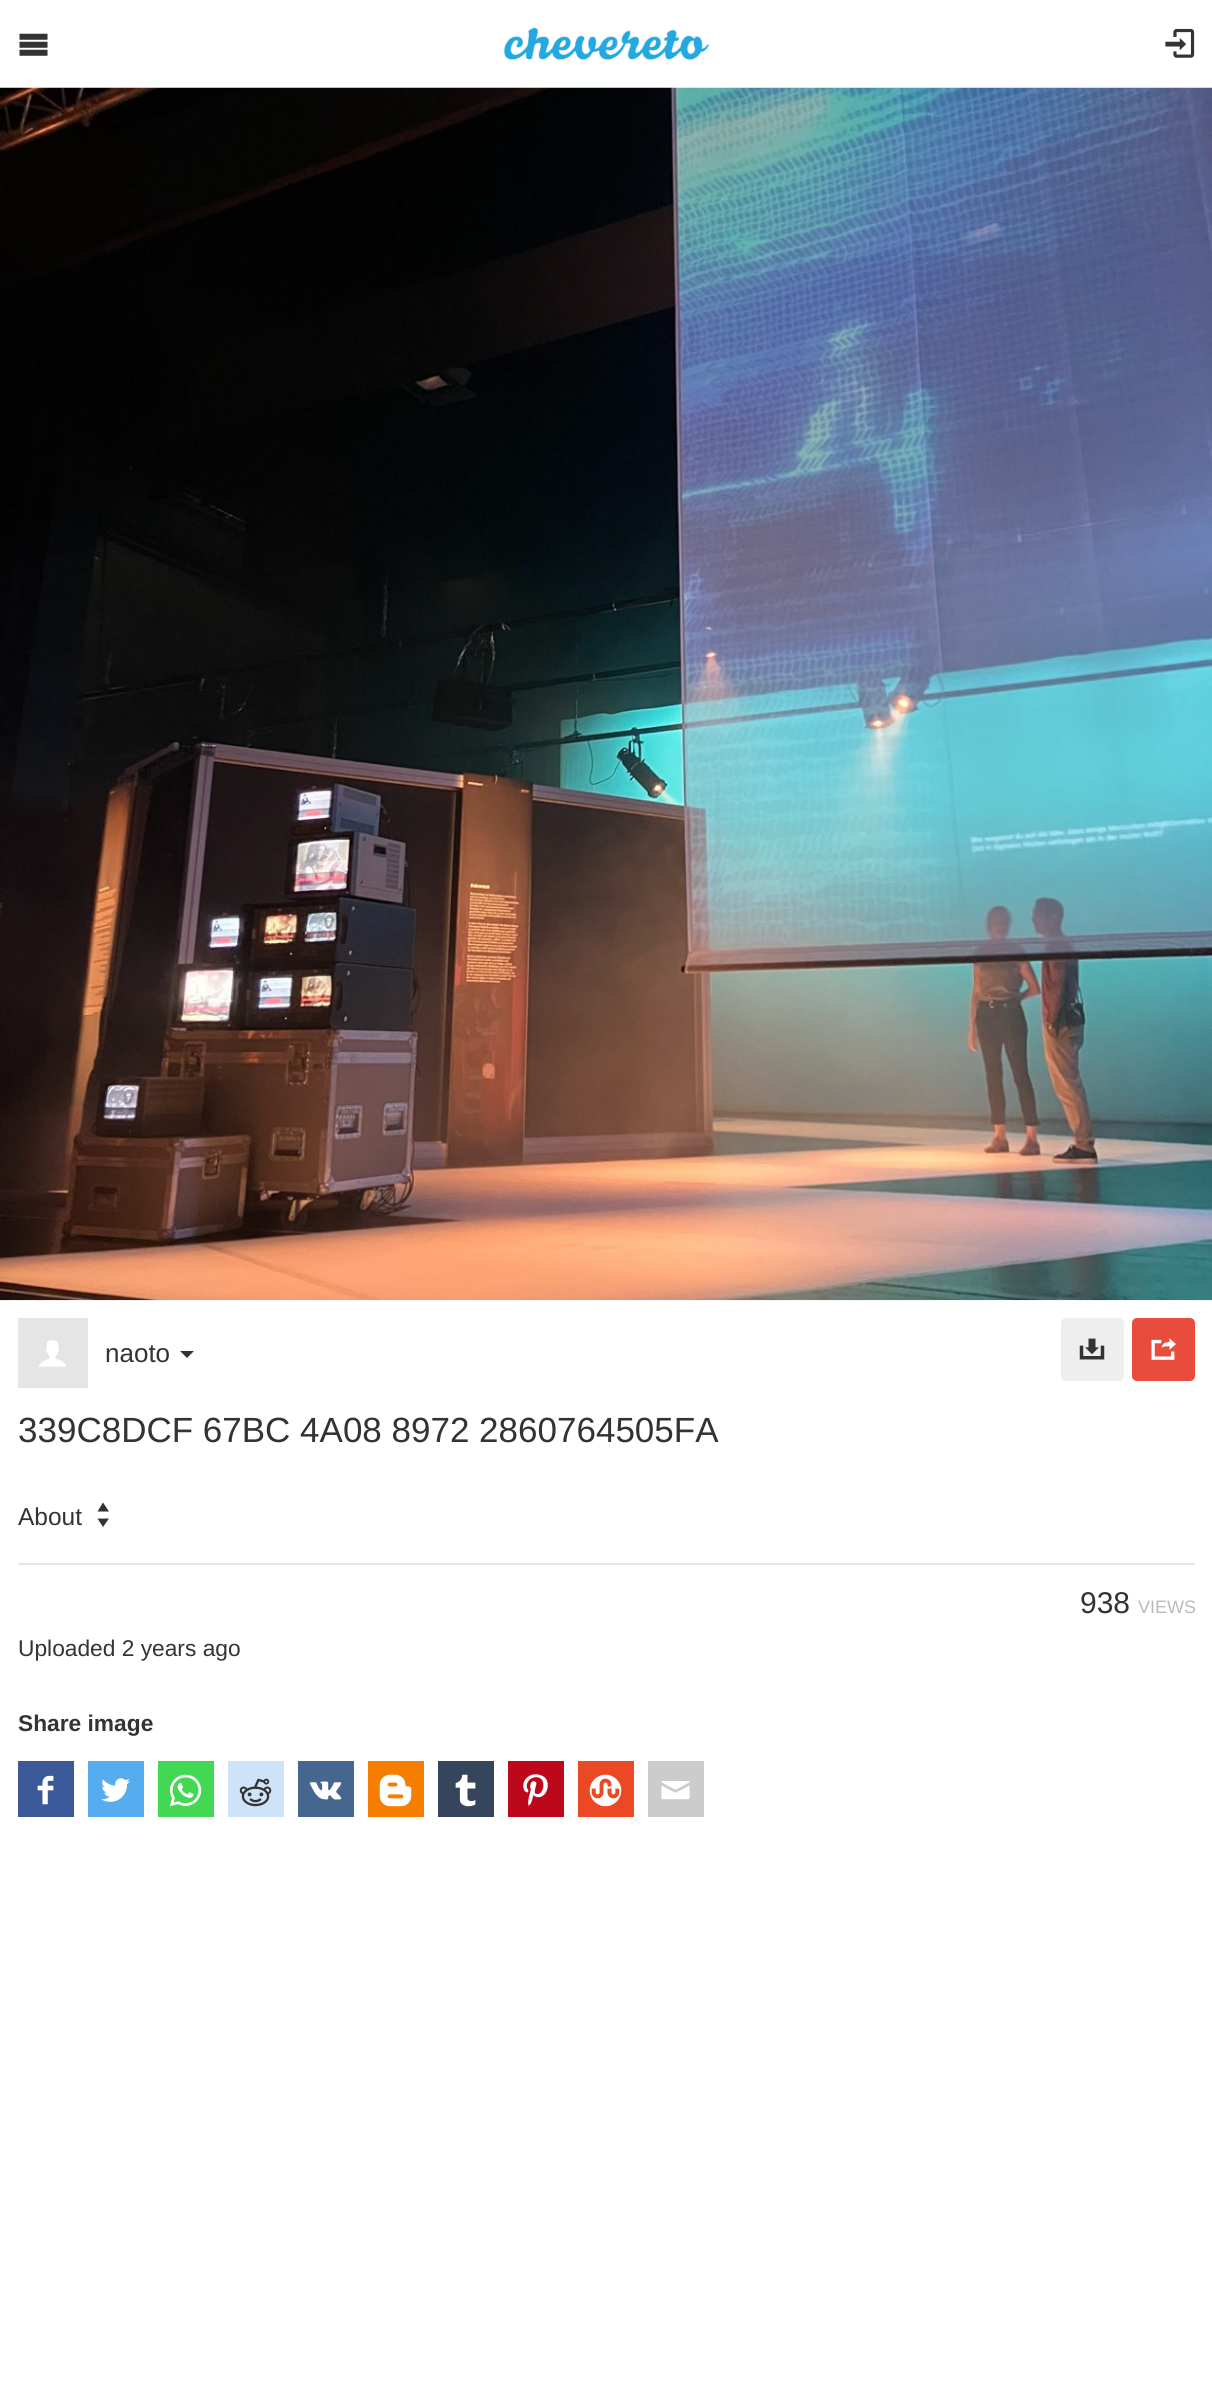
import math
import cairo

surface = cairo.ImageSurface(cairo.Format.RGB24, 1212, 2382)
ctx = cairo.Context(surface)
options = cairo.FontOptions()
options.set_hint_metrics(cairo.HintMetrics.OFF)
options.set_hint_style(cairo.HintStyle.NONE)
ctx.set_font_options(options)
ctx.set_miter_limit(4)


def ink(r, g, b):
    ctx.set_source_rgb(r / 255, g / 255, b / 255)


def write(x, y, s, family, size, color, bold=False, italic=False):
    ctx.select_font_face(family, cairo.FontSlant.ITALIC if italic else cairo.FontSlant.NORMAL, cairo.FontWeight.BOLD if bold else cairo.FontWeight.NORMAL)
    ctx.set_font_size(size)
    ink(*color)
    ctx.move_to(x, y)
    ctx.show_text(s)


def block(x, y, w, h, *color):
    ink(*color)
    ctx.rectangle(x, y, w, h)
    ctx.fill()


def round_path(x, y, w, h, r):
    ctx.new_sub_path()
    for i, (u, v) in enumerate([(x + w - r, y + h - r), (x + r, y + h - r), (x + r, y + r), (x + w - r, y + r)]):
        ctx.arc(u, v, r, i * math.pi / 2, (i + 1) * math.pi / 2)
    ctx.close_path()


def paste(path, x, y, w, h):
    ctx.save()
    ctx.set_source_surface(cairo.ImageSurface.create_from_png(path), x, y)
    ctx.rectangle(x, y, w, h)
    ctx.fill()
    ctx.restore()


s1 = dict(family="Liberation Sans", size=26, color=(51, 51, 51))
s2 = dict(family="Liberation Sans", size=35, color=(51, 51, 51))
s3 = dict(family="Liberation Sans", size=24.5, color=(51, 51, 51))
s4 = dict(family="Liberation Sans", size=30, color=(51, 51, 51))
s5 = dict(family="Liberation Sans", size=18, color=(187, 187, 187))
s6 = dict(family="Liberation Sans", size=22.75, color=(51, 51, 51))
s7 = dict(family="Liberation Sans", size=22.75, color=(51, 51, 51), bold=True)

ink(255, 255, 255)
ctx.paint()
paste("pic1.png", 19, 33, 29, 23)
paste("pic2.png", 503, 27, 206, 33)
paste("pic3.png", 1165, 28, 30, 30)
paste("pic4.png", 0, 87, 1212, 1214)
block(18, 1318, 70, 70, 229, 229, 229)
paste("pic5.png", 38, 1340, 29, 27)
write(105, 1362, "naoto", **s1)
ctx.new_path()
ctx.move_to(180, 1351)
ctx.line_to(194, 1351)
ctx.line_to(187, 1358)
ctx.close_path()
ctx.fill()
ink(238, 238, 238)
round_path(1061, 1318, 63, 63, 5)
ctx.fill()
paste("pic6.png", 1079, 1338, 26, 22)
ink(232, 76, 61)
round_path(1132, 1318, 63, 63, 5)
ctx.fill()
paste("pic7.png", 1151, 1338, 25, 22)
write(18, 1442, "339C8DCF 67BC 4A08 8972 2860764505FA", **s2)
block(18, 1563, 1177, 2, 229, 229, 229)
write(18, 1525, "About", **s3)
ctx.new_path()
ctx.move_to(103, 1502.5)
ctx.line_to(97.5, 1511.5)
ctx.line_to(109, 1511.5)
ctx.close_path()
ctx.move_to(103, 1527)
ctx.line_to(109, 1518.5)
ctx.line_to(97.5, 1518.5)
ctx.close_path()
ctx.fill()
write(1080, 1613, "938", **s4)
write(1138, 1613, "VIEWS", **s5)
write(18, 1656, "Uploaded 2 years ago", **s6)
write(18, 1731, "Share image", **s7)
block(18, 1761, 56, 56, 59, 89, 152)
paste("pic8.png", 37, 1775, 17, 30)
block(88, 1761, 56, 56, 85, 172, 238)
paste("pic9.png", 101, 1778, 29, 24)
block(158, 1761, 56, 56, 67, 216, 84)
paste("pic10.png", 169, 1774, 33, 33)
block(228, 1761, 56, 56, 206, 227, 248)
paste("pic11.png", 239, 1778, 33, 29)
block(298, 1761, 56, 56, 69, 102, 142)
paste("pic12.png", 309, 1781, 33, 19)
block(368, 1761, 56, 56, 245, 125, 0)
paste("pic13.png", 379, 1774, 33, 33)
block(438, 1761, 56, 56, 53, 70, 92)
paste("pic14.png", 455, 1774, 21, 33)
block(508, 1761, 56, 56, 189, 8, 28)
paste("pic15.png", 523, 1774, 25, 32)
block(578, 1761, 56, 56, 235, 73, 36)
paste("pic16.png", 589, 1774, 33, 33)
block(648, 1761, 56, 56, 204, 204, 204)
paste("pic17.png", 661, 1781, 29, 19)
surface.write_to_png("screenshot.png")
